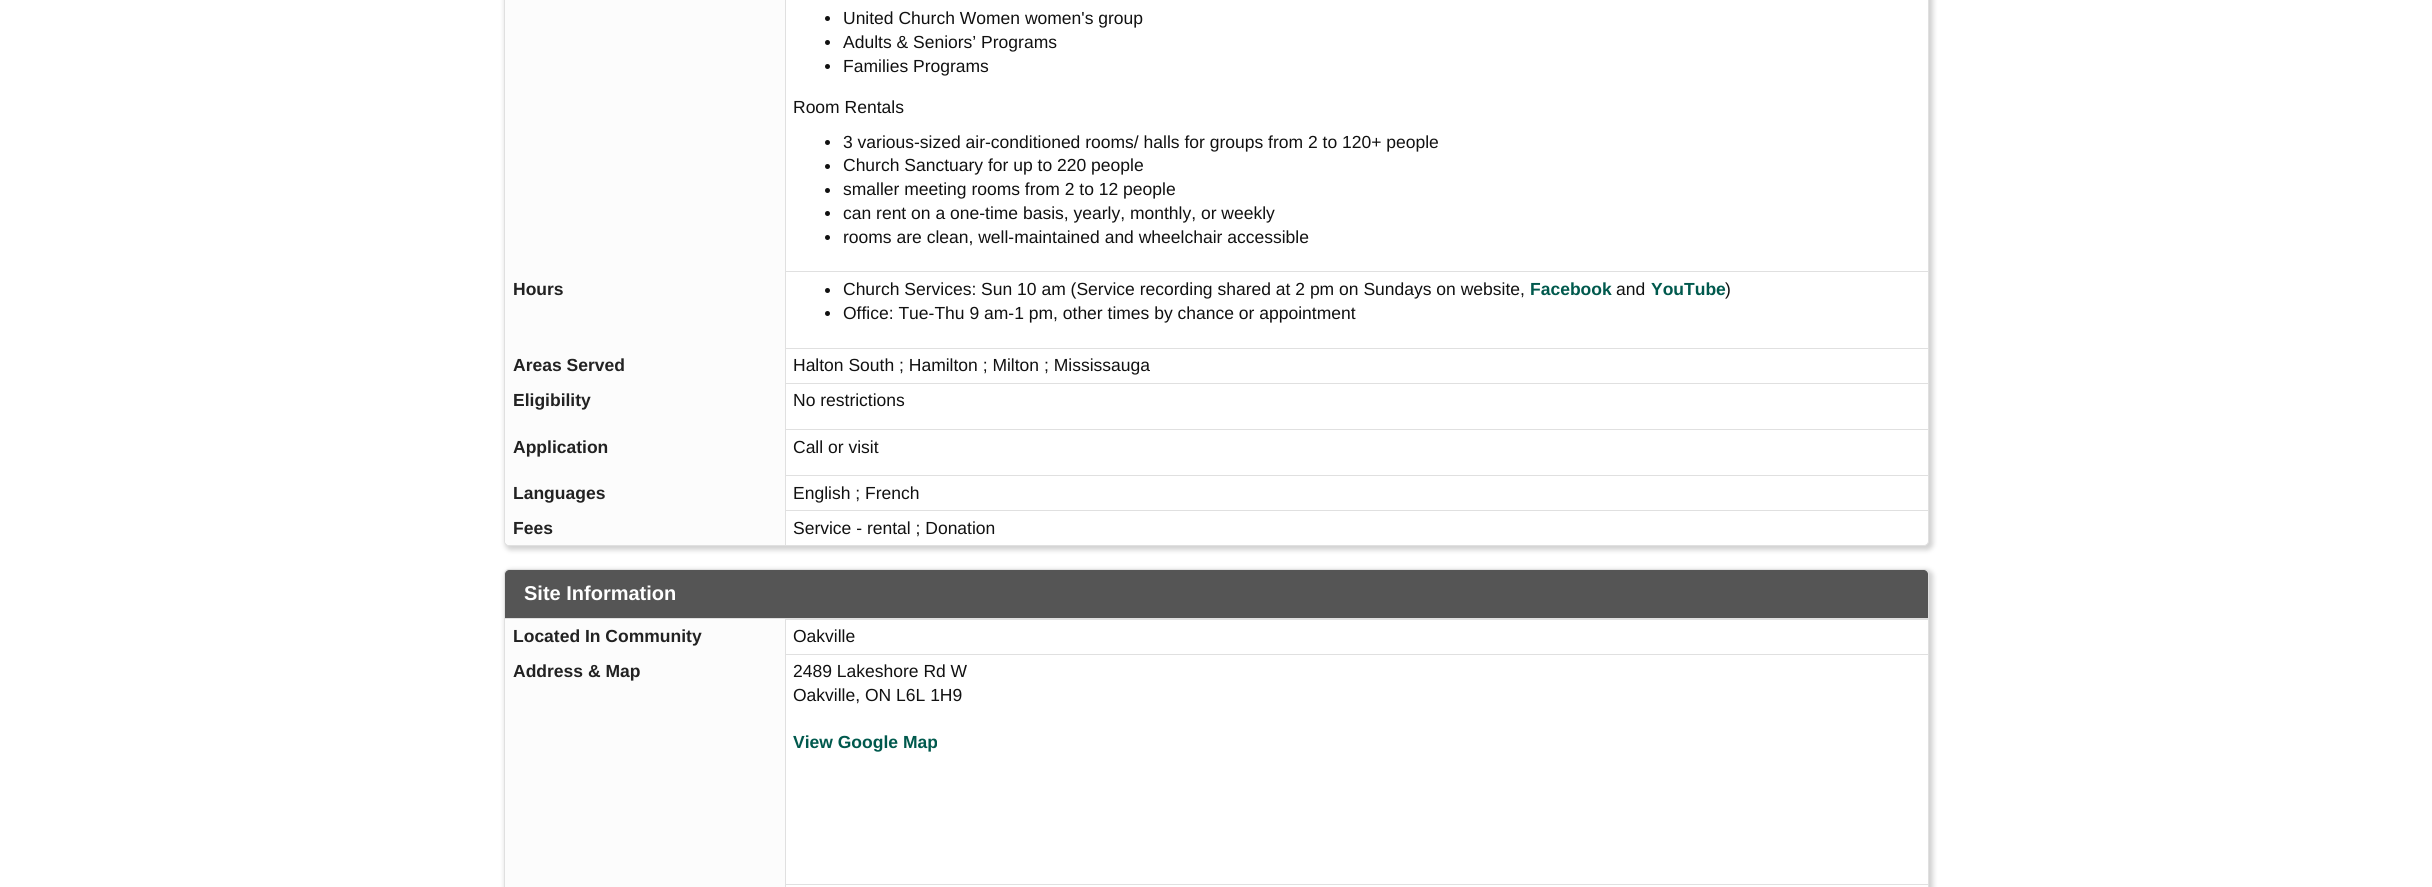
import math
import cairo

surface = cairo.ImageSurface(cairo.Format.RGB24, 2432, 887)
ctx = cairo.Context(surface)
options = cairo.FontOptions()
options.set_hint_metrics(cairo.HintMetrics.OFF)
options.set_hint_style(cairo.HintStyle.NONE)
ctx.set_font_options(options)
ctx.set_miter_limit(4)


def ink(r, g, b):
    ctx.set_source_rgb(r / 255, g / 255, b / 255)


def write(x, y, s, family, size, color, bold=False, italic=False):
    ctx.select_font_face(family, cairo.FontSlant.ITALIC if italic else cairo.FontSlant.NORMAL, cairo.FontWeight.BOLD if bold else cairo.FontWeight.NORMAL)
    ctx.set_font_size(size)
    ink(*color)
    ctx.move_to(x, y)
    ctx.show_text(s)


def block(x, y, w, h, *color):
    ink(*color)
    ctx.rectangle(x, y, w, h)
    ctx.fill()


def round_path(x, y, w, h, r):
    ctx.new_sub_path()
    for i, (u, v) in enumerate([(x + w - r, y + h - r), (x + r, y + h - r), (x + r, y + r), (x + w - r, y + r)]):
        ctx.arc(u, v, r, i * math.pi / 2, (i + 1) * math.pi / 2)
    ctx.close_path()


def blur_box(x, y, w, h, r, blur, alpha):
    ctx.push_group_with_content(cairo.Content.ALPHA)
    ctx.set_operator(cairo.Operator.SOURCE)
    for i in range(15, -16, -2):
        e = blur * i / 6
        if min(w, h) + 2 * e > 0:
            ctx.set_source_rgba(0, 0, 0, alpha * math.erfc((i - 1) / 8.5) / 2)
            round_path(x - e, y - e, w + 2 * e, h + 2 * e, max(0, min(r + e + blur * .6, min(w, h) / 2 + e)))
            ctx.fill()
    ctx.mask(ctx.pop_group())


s1 = dict(family="Liberation Sans", size=17.5, color=(17, 17, 17))
s2 = dict(family="Liberation Sans", size=17.5, color=(34, 34, 34), bold=True)
s3 = dict(family="Liberation Sans", size=17.5, color=(0, 89, 77), bold=True)
s4 = dict(family="Liberation Sans", size=20, color=(255, 255, 255), bold=True)

ink(255, 255, 255)
ctx.paint()
ink(102, 102, 102)
blur_box(505, -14, 1428, 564, 6, 2.5, 0.3)
ink(255, 255, 255)
round_path(504.5, -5.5, 1424, 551, 4.5)
ctx.fill_preserve()
ink(224, 224, 224)
ctx.set_line_width(1)
ctx.stroke()
block(505, 0, 280, 511, 252, 252, 252)
ink(17, 17, 17)
ctx.arc(827.5, 18.5, 2.5, 0, 2 * math.pi)
ctx.fill()
write(843, 24, "United Church Women women's group", **s1)
ctx.new_path()
ctx.arc(827.5, 42.5, 2.5, 0, 2 * math.pi)
ctx.fill()
write(843, 48, "Adults & Seniors’ Programs", **s1)
ctx.new_path()
ctx.arc(827.5, 66.5, 2.5, 0, 2 * math.pi)
ctx.fill()
write(843, 72, "Families Programs", **s1)
write(793, 113, "Room Rentals", **s1)
ctx.new_path()
ctx.arc(827.5, 142.5, 2.5, 0, 2 * math.pi)
ctx.fill()
write(843, 148, "3 various-sized air-conditioned rooms/ halls for groups from 2 to 120+ people", **s1)
ctx.new_path()
ctx.arc(827.5, 166.5, 2.5, 0, 2 * math.pi)
ctx.fill()
write(843, 171, "Church Sanctuary for up to 220 people", **s1)
ctx.new_path()
ctx.arc(827.5, 190.5, 2.5, 0, 2 * math.pi)
ctx.fill()
write(843, 195, "smaller meeting rooms from 2 to 12 people", **s1)
ctx.new_path()
ctx.arc(827.5, 213.5, 2.5, 0, 2 * math.pi)
ctx.fill()
write(843, 219, "can rent on a one-time basis, yearly, monthly, or weekly", **s1)
ctx.new_path()
ctx.arc(827.5, 237.5, 2.5, 0, 2 * math.pi)
ctx.fill()
write(843, 243, "rooms are clean, well-maintained and wheelchair accessible", **s1)
write(513, 295, "Hours", **s2)
block(785, 271, 1144, 1, 224, 224, 224)
block(785, 348, 1144, 1, 224, 224, 224)
block(785, 383, 1144, 1, 224, 224, 224)
block(785, 429, 1144, 1, 224, 224, 224)
block(785, 475, 1144, 1, 224, 224, 224)
block(785, 510, 1144, 1, 224, 224, 224)
block(785, 510, 1, 35, 224, 224, 224)
block(785, 475, 1, 36, 224, 224, 224)
block(785, 429, 1, 47, 224, 224, 224)
block(785, 383, 1, 47, 224, 224, 224)
block(785, 348, 1, 36, 224, 224, 224)
block(785, 0, 1, 349, 224, 224, 224)
ink(17, 17, 17)
ctx.new_path()
ctx.arc(827.5, 290.5, 2.5, 0, 2 * math.pi)
ctx.fill()
write(843, 295, "Church Services: Sun 10 am (Service recording shared at 2 pm on Sundays on website,", **s1)
write(1530, 295, "Facebook", **s3)
write(1616, 295, "and", **s1)
write(1651, 295, "YouTube", **s3)
write(1725, 295, ")", **s1)
ctx.new_path()
ctx.arc(827.5, 313.5, 2.5, 0, 2 * math.pi)
ctx.fill()
write(843, 319, "Office: Tue-Thu 9 am-1 pm, other times by chance or appointment", **s1)
write(513, 371, "Areas Served", **s2)
write(793, 371, "Halton South ; Hamilton ; Milton ; Mississauga", **s1)
write(513, 406, "Eligibility", **s2)
write(793, 406, "No restrictions", **s1)
write(513, 453, "Application", **s2)
write(793, 453, "Call or visit", **s1)
write(513, 499, "Languages", **s2)
write(793, 499, "English ; French", **s1)
ink(252, 252, 252)
ctx.new_path()
ctx.move_to(505, 511)
ctx.line_to(785, 511)
ctx.line_to(785, 545)
ctx.line_to(510, 545)
ctx.curve_to(507, 545, 505, 543, 505, 540)
ctx.close_path()
ctx.fill()
write(513, 534, "Fees", **s2)
write(793, 534, "Service - rental ; Donation", **s1)
ink(102, 102, 102)
blur_box(505, 570, 1428, 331, 6, 2.5, 0.3)
ink(255, 255, 255)
round_path(504.5, 569.5, 1424, 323, 4.5)
ctx.fill_preserve()
ink(224, 224, 224)
ctx.stroke()
ink(85, 85, 85)
ctx.new_path()
ctx.move_to(509, 570)
ctx.line_to(1924, 570)
ctx.curve_to(1926, 570, 1928, 572, 1928, 574)
ctx.line_to(1928, 619)
ctx.line_to(505, 619)
ctx.line_to(505, 574)
ctx.curve_to(505, 572, 507, 570, 509, 570)
ctx.close_path()
ctx.fill()
block(505, 618, 1423, 1, 224, 224, 224)
write(524, 600, "Site Information", **s4)
block(786, 619, 1142, 1, 224, 224, 224)
block(505, 619, 280, 268, 252, 252, 252)
write(513, 642, "Located In Community", **s2)
write(793, 642, "Oakville", **s1)
write(513, 677, "Address & Map", **s2)
block(785, 654, 1144, 1, 224, 224, 224)
block(785, 884, 1144, 1, 224, 224, 224)
block(785, 884, 1, 3, 224, 224, 224)
block(785, 619, 1, 266, 224, 224, 224)
write(793, 677, "2489 Lakeshore Rd W", **s1)
write(793, 701, "Oakville, ON L6L 1H9", **s1)
write(793, 748, "View Google Map", **s3)
surface.write_to_png("screenshot.png")
